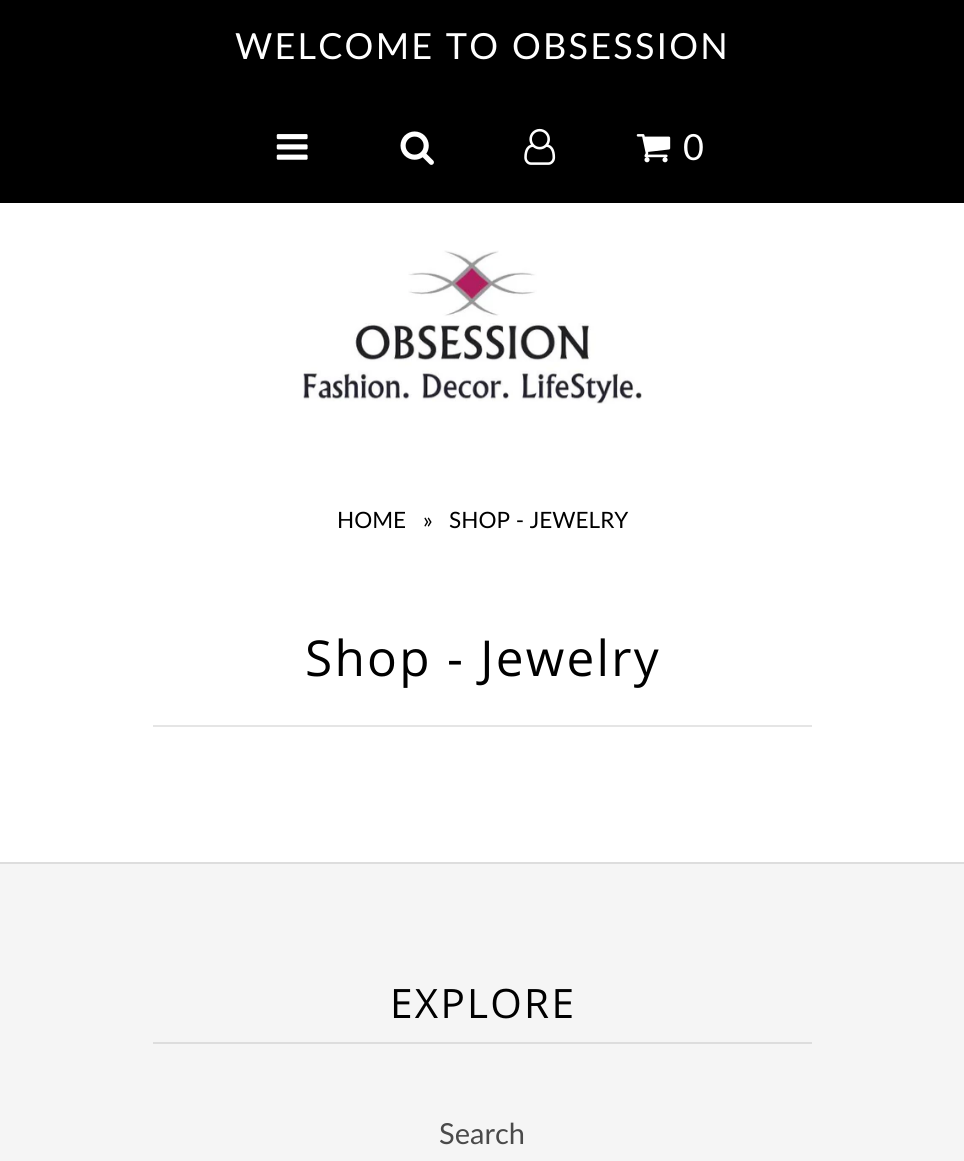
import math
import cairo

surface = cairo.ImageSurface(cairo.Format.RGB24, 964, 1161)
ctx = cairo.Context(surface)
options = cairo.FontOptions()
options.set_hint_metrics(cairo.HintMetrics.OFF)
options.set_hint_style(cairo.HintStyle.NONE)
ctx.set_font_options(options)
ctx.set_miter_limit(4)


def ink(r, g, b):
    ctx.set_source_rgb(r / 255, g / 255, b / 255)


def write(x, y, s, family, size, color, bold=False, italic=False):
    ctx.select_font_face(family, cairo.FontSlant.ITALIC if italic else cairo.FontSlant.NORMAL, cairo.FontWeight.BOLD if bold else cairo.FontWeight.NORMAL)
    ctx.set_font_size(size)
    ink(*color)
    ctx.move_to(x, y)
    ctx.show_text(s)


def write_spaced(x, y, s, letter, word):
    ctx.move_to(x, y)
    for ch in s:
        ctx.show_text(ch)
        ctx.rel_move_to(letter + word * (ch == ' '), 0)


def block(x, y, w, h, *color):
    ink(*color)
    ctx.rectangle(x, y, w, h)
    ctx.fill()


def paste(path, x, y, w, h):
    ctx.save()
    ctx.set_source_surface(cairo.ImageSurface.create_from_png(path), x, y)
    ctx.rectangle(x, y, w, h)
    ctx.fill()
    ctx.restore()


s1 = dict(family="Lato", size=22.5, color=(0, 0, 0))
s2 = dict(family="Lato", size=29, color=(74, 74, 74))

ink(255, 255, 255)
ctx.paint()
block(0, 0, 964, 203, 0, 0, 0)
ctx.select_font_face("Lato")
ctx.set_font_size(36)
ink(255, 255, 255)
write_spaced(235, 59, "WELCOME TO OBSESSION", 2.25, 0)
paste("pic1.png", 276, 134, 32, 26)
paste("pic2.png", 400, 131, 34, 34)
paste("pic3.png", 524, 128, 32, 37)
paste("pic4.png", 636, 134, 35, 29)
write_spaced(683, 160, "0", 2.25, 0)
paste("pic5.png", 303, 250, 339, 154)
write(337, 528, "HOME", **s1)
write(423, 528, "»", **s1)
write(449, 528, "SHOP - JEWELRY", **s1)
block(153, 725, 659, 2, 229, 229, 229)
ctx.select_font_face("Open Sans")
ctx.set_font_size(49.5)
ink(0, 0, 0)
write_spaced(305, 676, "Shop - Jewelry", 2.25, 0)
block(0, 864, 964, 297, 245, 245, 245)
block(0, 862, 964, 2, 221, 221, 221)
block(153, 1042, 659, 2, 221, 221, 221)
ctx.set_font_size(40.5)
ink(0, 0, 0)
write_spaced(390, 1018, "EXPLORE", 2.25, 0)
write(439, 1144, "Search", **s2)
surface.write_to_png("screenshot.png")
